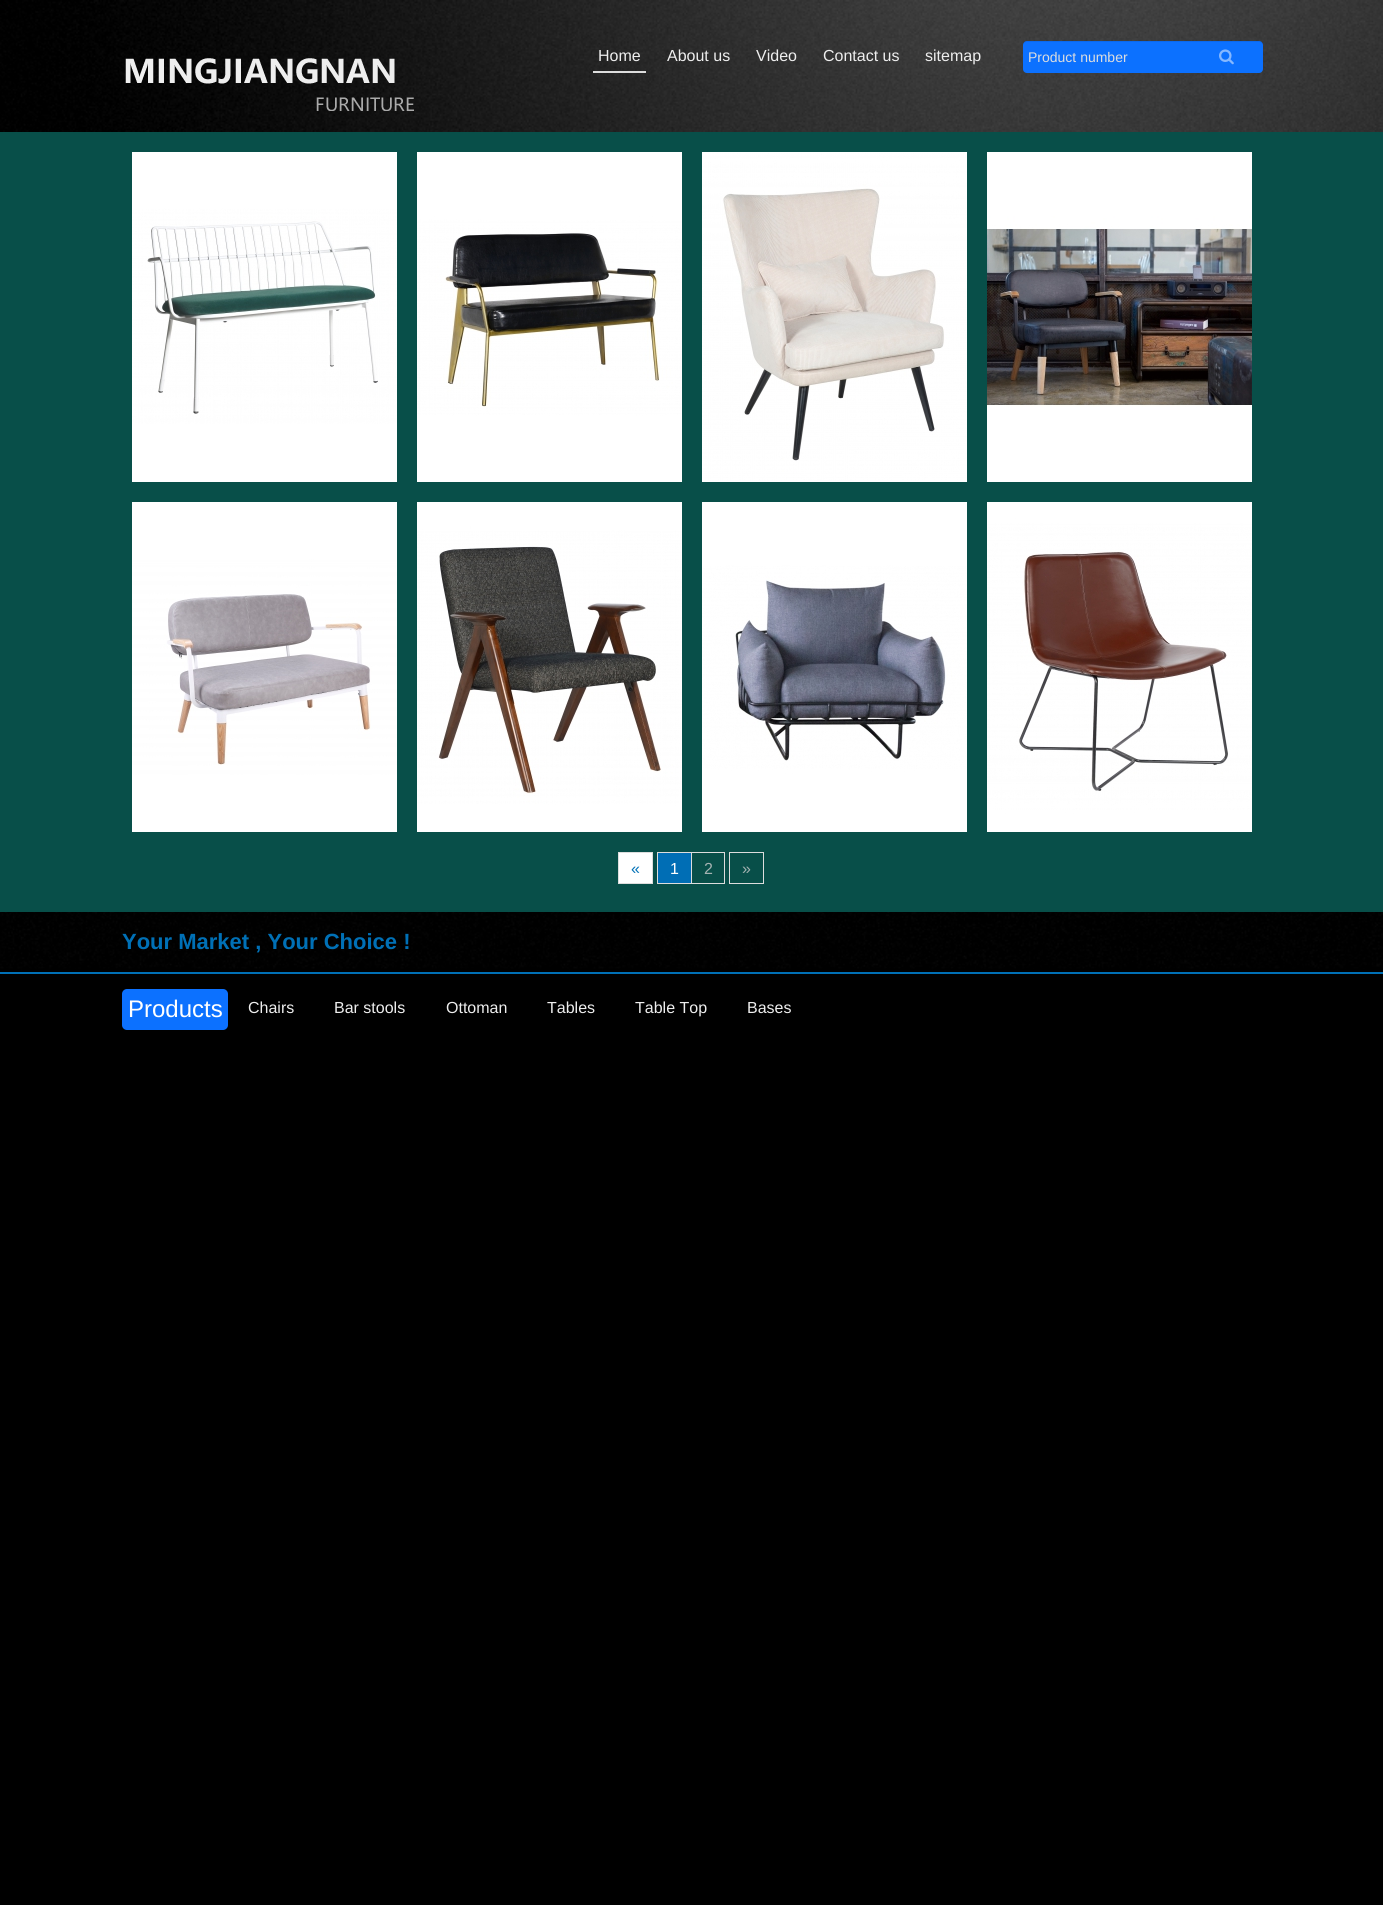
import math
import cairo

surface = cairo.ImageSurface(cairo.Format.RGB24, 1383, 1905)
ctx = cairo.Context(surface)
options = cairo.FontOptions()
options.set_hint_metrics(cairo.HintMetrics.OFF)
options.set_hint_style(cairo.HintStyle.NONE)
ctx.set_font_options(options)
ctx.set_miter_limit(4)


def ink(r, g, b):
    ctx.set_source_rgb(r / 255, g / 255, b / 255)


def write(x, y, s, family, size, color, bold=False, italic=False):
    ctx.select_font_face(family, cairo.FontSlant.ITALIC if italic else cairo.FontSlant.NORMAL, cairo.FontWeight.BOLD if bold else cairo.FontWeight.NORMAL)
    ctx.set_font_size(size)
    ink(*color)
    ctx.move_to(x, y)
    ctx.show_text(s)


def block(x, y, w, h, *color):
    ink(*color)
    ctx.rectangle(x, y, w, h)
    ctx.fill()


def round_path(x, y, w, h, r):
    ctx.new_sub_path()
    for i, (u, v) in enumerate([(x + w - r, y + h - r), (x + r, y + h - r), (x + r, y + r), (x + w - r, y + r)]):
        ctx.arc(u, v, r, i * math.pi / 2, (i + 1) * math.pi / 2)
    ctx.close_path()


def paste(path, x, y, w, h):
    ctx.save()
    ctx.set_source_surface(cairo.ImageSurface.create_from_png(path), x, y)
    ctx.rectangle(x, y, w, h)
    ctx.fill()
    ctx.restore()


s1 = dict(family="Liberation Sans", size=16, color=(238, 238, 238))
s2 = dict(family="Liberation Sans", size=14, color=(221, 221, 221))
s3 = dict(family="Liberation Sans", size=16, color=(0, 112, 182))
s4 = dict(family="Liberation Sans", size=16, color=(255, 255, 255))
s5 = dict(family="Liberation Sans", size=16, color=(165, 179, 178))
s6 = dict(family="Liberation Sans", size=22, color=(0, 112, 182), bold=True)
s7 = dict(family="Liberation Sans", size=24, color=(255, 255, 255))

ink(255, 255, 255)
ctx.paint()
paste("pic1.png", 0, 0, 1383, 1905)
paste("pic2.png", 125, 58, 289, 53)
block(593, 71, 53, 2, 221, 221, 221)
write(598, 61, "Home", **s1)
write(667, 61, "About us", **s1)
write(756, 61, "Video", **s1)
write(823, 61, "Contact us", **s1)
write(925, 61, "sitemap", **s1)
ink(12, 113, 255)
round_path(1023, 41, 240, 32, 4)
ctx.fill()
ctx.set_source_rgba(0, 0, 0, 0.07)
ctx.new_path()
ctx.move_to(1027, 42)
ctx.line_to(1259, 42)
ctx.curve_to(1261, 42, 1263, 44, 1263, 46)
ctx.curve_to(1263, 43, 1262, 41, 1259, 41)
ctx.line_to(1027, 41)
ctx.curve_to(1024, 41, 1023, 43, 1023, 46)
ctx.curve_to(1023, 44, 1025, 42, 1027, 42)
ctx.close_path()
ctx.fill()
write(1028, 62, "Product number", **s2)
paste("pic3.png", 1219, 49, 15, 16)
block(0, 132, 1383, 780, 8, 79, 73)
paste("pic4.png", 132, 152, 265, 330)
paste("pic5.png", 417, 152, 265, 330)
paste("pic6.png", 702, 152, 265, 330)
paste("pic7.png", 987, 152, 265, 330)
paste("pic8.png", 132, 502, 265, 330)
paste("pic9.png", 417, 502, 265, 330)
paste("pic10.png", 702, 502, 265, 330)
paste("pic11.png", 987, 502, 265, 330)
ink(255, 255, 255)
ctx.rectangle(618.5, 852.5, 34, 31)
ctx.fill_preserve()
ink(221, 221, 221)
ctx.set_line_width(1)
ctx.stroke()
write(631, 874, "«", **s3)
ink(0, 110, 181)
ctx.rectangle(657.5, 852.5, 34, 31)
ctx.fill_preserve()
ink(221, 221, 221)
ctx.stroke()
write(670, 874, "1", **s4)
ctx.rectangle(691.5, 852.5, 33, 31)
ink(221, 221, 221)
ctx.stroke()
write(704, 874, "2", **s5)
ctx.rectangle(729.5, 852.5, 34, 31)
ink(221, 221, 221)
ctx.stroke()
write(742, 874, "»", **s5)
block(0, 972, 1383, 2, 0, 112, 182)
write(122, 949, "Your Market , Your Choice !", **s6)
ink(12, 113, 255)
round_path(122, 989, 106, 41, 5)
ctx.fill()
write(128, 1017, "Products", **s7)
write(248, 1013, "Chairs", **s1)
write(334, 1013, "Bar stools", **s1)
write(446, 1013, "Ottoman", **s1)
write(547, 1013, "Tables", **s1)
write(635, 1013, "Table Top", **s1)
write(747, 1013, "Bases", **s1)
surface.write_to_png("screenshot.png")
